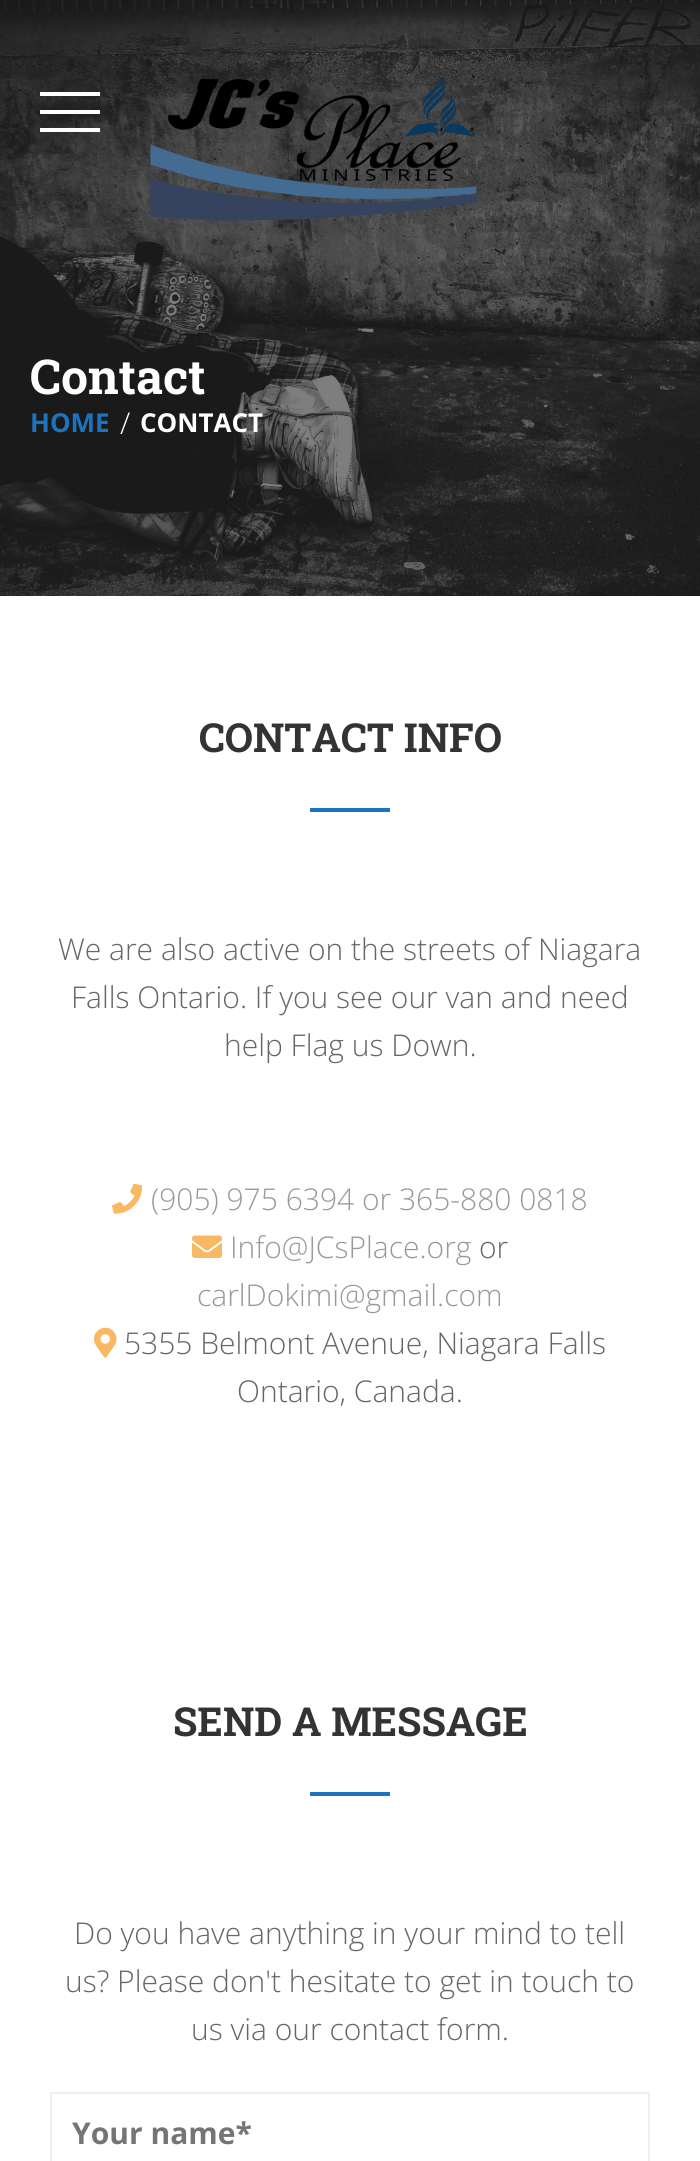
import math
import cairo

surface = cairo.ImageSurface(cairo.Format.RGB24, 700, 2161)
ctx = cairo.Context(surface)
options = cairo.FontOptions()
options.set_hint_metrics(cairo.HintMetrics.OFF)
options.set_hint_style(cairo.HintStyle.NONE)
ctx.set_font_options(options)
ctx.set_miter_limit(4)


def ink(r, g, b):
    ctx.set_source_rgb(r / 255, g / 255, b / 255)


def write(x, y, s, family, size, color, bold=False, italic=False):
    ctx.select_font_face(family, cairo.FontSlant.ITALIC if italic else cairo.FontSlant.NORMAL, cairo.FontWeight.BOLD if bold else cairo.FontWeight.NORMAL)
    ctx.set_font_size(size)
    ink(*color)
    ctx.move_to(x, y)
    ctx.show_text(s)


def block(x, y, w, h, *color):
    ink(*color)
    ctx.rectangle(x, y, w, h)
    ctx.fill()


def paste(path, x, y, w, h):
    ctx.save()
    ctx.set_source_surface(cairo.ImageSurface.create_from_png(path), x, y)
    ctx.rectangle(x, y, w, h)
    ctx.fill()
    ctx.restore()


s1 = dict(family="Roboto Slab", size=48, color=(255, 255, 255), bold=True)
s2 = dict(family="Open Sans", size=26, color=(30, 115, 190), bold=True)
s3 = dict(family="Open Sans Light", size=30, color=(255, 255, 255))
s4 = dict(family="Open Sans", size=26, color=(255, 255, 255), bold=True)
s5 = dict(family="Roboto Slab", size=40, color=(51, 51, 51), bold=True)
s6 = dict(family="Open Sans Light", size=30, color=(102, 102, 102))
s7 = dict(family="Open Sans Light", size=30, color=(153, 153, 153))
s8 = dict(family="Open Sans", size=30, color=(117, 117, 117), bold=True)

ink(255, 255, 255)
ctx.paint()
paste("pic2.png", 0, 0, 700, 596)
block(40, 110, 60, 4, 255, 255, 255)
block(40, 92, 60, 4, 255, 255, 255)
block(40, 128, 60, 4, 255, 255, 255)
paste("pic1.png", 150, 75, 327, 146)
write(30, 394, "Contact", **s1)
write(30, 432, "HOME", **s2)
write(120, 434, "/", **s3)
write(140, 432, "CONTACT", **s4)
write(199, 752, "CONTACT INFO", **s5)
block(310, 808, 80, 4, 30, 115, 190)
write(58, 960, "We are also active on the streets of Niagara", **s6)
write(71, 1008, "Falls Ontario. If you see our van and need", **s6)
write(224, 1056, "help Flag us Down.", **s6)
paste("pic3.png", 112, 1183, 31, 31)
write(151, 1210, "(905) 975 6394 or 365-880 0818", **s7)
paste("pic4.png", 192, 1235, 30, 23)
write(230, 1258, "Info@JCsPlace.org", **s7)
write(479, 1258, "or", **s6)
write(197, 1306, "carlDokimi@gmail.com", **s7)
paste("pic5.png", 94, 1327, 23, 31)
write(124, 1354, "5355 Belmont Avenue, Niagara Falls", **s6)
write(237, 1402, "Ontario, Canada.", **s6)
write(173, 1736, "SEND A MESSAGE", **s5)
block(310, 1792, 80, 4, 30, 115, 190)
write(74, 1944, "Do you have anything in your mind to tell", **s6)
write(65, 1992, "us? Please don't hesitate to get in touch to", **s6)
write(191, 2040, "us via our contact form.", **s6)
ctx.rectangle(51, 2093, 598, 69)
ink(238, 238, 238)
ctx.stroke()
write(72, 2144, "Your name*", **s8)
surface.write_to_png("screenshot.png")
